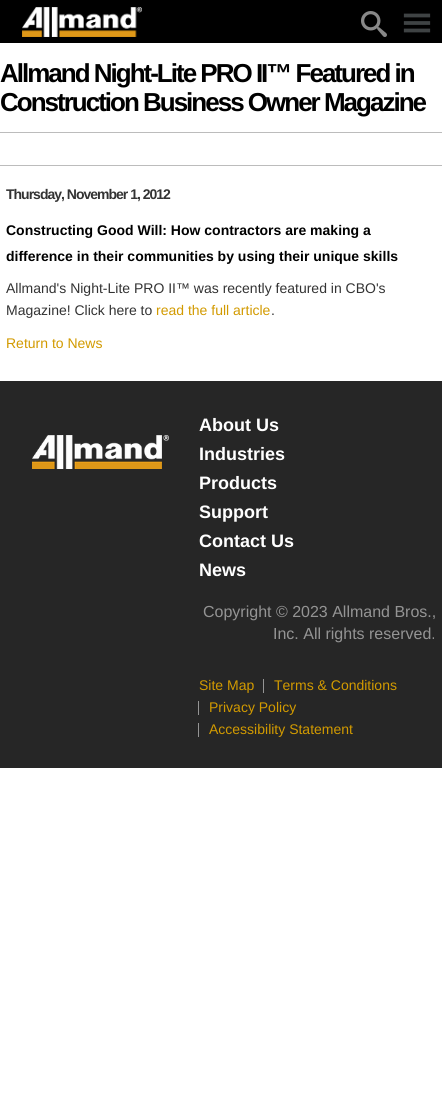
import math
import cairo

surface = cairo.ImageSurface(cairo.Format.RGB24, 442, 1096)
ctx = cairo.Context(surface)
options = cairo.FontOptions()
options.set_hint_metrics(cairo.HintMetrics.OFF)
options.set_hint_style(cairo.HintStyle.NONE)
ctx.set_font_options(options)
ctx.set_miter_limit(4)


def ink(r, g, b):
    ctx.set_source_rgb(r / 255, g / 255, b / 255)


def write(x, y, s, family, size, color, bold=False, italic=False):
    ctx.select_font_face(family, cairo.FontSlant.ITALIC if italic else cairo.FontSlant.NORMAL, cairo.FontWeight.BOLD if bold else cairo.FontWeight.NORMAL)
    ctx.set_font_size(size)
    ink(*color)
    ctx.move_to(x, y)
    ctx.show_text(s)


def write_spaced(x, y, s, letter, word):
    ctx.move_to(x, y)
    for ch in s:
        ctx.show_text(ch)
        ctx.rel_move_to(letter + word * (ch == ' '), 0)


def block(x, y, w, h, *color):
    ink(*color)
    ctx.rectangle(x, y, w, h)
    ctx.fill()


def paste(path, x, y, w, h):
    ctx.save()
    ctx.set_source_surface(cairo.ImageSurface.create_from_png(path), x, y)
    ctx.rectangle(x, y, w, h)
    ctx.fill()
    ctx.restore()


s1 = dict(family="Liberation Sans", size=14, color=(0, 0, 0), bold=True)
s2 = dict(family="Liberation Sans", size=14, color=(51, 51, 51))
s3 = dict(family="Liberation Sans", size=14, color=(210, 154, 0))
s4 = dict(family="Liberation Sans", size=18, color=(255, 255, 255), bold=True)
s5 = dict(family="Liberation Sans", size=16, color=(148, 148, 148))

ink(255, 255, 255)
ctx.paint()
block(0, 0, 442, 43, 0, 0, 0)
paste("pic1.png", 22, 7, 120, 30)
paste("pic2.png", 361, 11, 26, 26)
paste("pic3.png", 403, 13, 28, 20)
ctx.select_font_face("Liberation Sans", cairo.FontSlant.NORMAL, cairo.FontWeight.BOLD)
ctx.set_font_size(26)
write_spaced(0, 82, "Allmand Night-Lite PRO II™ Featured in", -2, 0)
write_spaced(0, 111, "Construction Business Owner Magazine", -2, 0)
block(0, 132, 442, 1, 188, 188, 188)
block(0, 165, 442, 1, 188, 188, 188)
ctx.set_font_size(14)
ink(51, 51, 51)
write_spaced(6, 199, "Thursday, November 1, 2012", -1, 0)
write(6, 235, "Constructing Good Will: How contractors are making a", **s1)
write(6, 261, "difference in their communities by using their unique skills", **s1)
write(6, 293, "Allmand's Night-Lite PRO II™ was recently featured in CBO's", **s2)
write(6, 315, "Magazine! Click here to", **s2)
write(156, 315, "read the full article", **s3)
write(271, 315, ".", **s2)
write(6, 348, "Return to News", **s3)
block(0, 381, 442, 387, 38, 38, 38)
paste("pic4.png", 32, 435, 137, 34)
write(199, 431, "About Us", **s4)
write(199, 460, "Industries", **s4)
write(199, 489, "Products", **s4)
write(199, 518, "Support", **s4)
write(199, 547, "Contact Us", **s4)
write(199, 576, "News", **s4)
write(203, 617, "Copyright © 2023 Allmand Bros.,", **s5)
write(273, 639, "Inc. All rights reserved.", **s5)
write(199, 690, "Site Map", **s3)
block(263, 679, 1, 14, 148, 148, 148)
write(274, 690, "Terms & Conditions", **s3)
block(198, 701, 1, 14, 148, 148, 148)
write(209, 712, "Privacy Policy", **s3)
block(198, 723, 1, 14, 148, 148, 148)
write(209, 734, "Accessibility Statement", **s3)
surface.write_to_png("screenshot.png")
